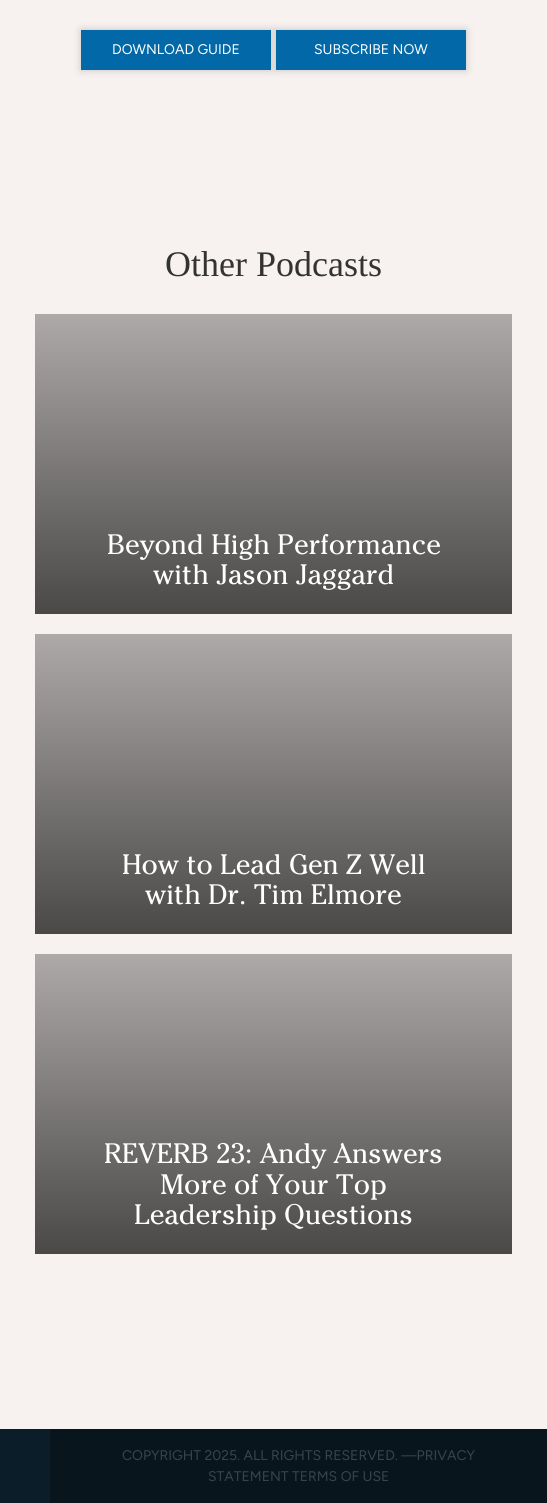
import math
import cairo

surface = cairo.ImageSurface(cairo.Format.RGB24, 547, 1503)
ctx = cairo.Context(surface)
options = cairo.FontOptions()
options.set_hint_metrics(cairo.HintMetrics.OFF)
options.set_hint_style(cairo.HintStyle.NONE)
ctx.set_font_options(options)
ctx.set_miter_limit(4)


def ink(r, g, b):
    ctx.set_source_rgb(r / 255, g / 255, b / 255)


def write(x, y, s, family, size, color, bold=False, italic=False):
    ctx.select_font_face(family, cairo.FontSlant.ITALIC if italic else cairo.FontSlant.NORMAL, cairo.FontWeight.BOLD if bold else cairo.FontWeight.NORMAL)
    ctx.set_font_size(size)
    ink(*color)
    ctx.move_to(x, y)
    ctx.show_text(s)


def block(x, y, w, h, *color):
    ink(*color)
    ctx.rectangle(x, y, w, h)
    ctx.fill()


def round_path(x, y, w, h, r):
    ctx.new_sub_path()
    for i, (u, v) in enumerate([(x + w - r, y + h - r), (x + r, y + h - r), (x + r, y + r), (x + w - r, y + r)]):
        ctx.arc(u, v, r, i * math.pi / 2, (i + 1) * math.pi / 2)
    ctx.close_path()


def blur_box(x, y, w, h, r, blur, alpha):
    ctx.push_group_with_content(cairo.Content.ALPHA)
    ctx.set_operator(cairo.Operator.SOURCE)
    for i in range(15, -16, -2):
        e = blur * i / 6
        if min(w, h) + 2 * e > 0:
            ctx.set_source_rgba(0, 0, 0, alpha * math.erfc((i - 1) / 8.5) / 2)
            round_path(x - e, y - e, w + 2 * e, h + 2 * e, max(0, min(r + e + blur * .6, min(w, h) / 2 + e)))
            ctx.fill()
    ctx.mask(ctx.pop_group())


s1 = dict(family="Figtree Light", size=14, color=(255, 255, 255))
s2 = dict(family="Liberation Serif", size=36, color=(51, 51, 51))
s3 = dict(family="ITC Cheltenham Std", size=28, color=(255, 255, 255))
s4 = dict(family="Figtree Light", size=14, color=(57, 68, 74))

ink(247, 242, 239)
ctx.paint()
ink(0, 0, 0)
blur_box(81, 30, 190, 40, 0, 4, 0.2)
block(81, 30, 190, 40, 2, 104, 167)
write(112, 54, "DOWNLOAD GUIDE", **s1)
ink(0, 0, 0)
blur_box(276, 30, 190, 40, 0, 4, 0.2)
block(276, 30, 190, 40, 2, 104, 167)
write(314, 54, "SUBSCRIBE NOW", **s1)
write(165, 276, "Other Podcasts", **s2)
gradient = cairo.LinearGradient(274, 314, 274, 614)
gradient.add_color_stop_rgba(0, 0.678, 0.663, 0.659, 1)
gradient.add_color_stop_rgba(1, 0.29, 0.286, 0.282, 1)
ctx.set_source(gradient)
ctx.rectangle(35, 314, 477, 300)
ctx.fill()
write(107, 554, "Beyond High Performance", **s3)
write(153, 584, "with Jason Jaggard", **s3)
gradient = cairo.LinearGradient(274, 634, 274, 934)
gradient.add_color_stop_rgba(0, 0.678, 0.663, 0.659, 1)
gradient.add_color_stop_rgba(1, 0.29, 0.286, 0.282, 1)
ctx.set_source(gradient)
ctx.rectangle(35, 634, 477, 300)
ctx.fill()
write(122, 874, "How to Lead Gen Z Well", **s3)
write(145, 904, "with Dr. Tim Elmore", **s3)
gradient = cairo.LinearGradient(274, 954, 274, 1254)
gradient.add_color_stop_rgba(0, 0.678, 0.663, 0.659, 1)
gradient.add_color_stop_rgba(1, 0.29, 0.286, 0.282, 1)
ctx.set_source(gradient)
ctx.rectangle(35, 954, 477, 300)
ctx.fill()
write(104, 1163, "REVERB 23: Andy Answers", **s3)
write(160, 1194, "More of Your Top", **s3)
write(134, 1224, "Leadership Questions", **s3)
block(50, 1429, 497, 74, 8, 21, 29)
block(0, 1429, 50, 74, 11, 29, 41)
write(122, 1460, "COPYRIGHT 2025. ALL RIGHTS RESERVED. —PRIVACY", **s4)
write(208, 1481, "STATEMENT TERMS OF USE", **s4)
surface.write_to_png("screenshot.png")
